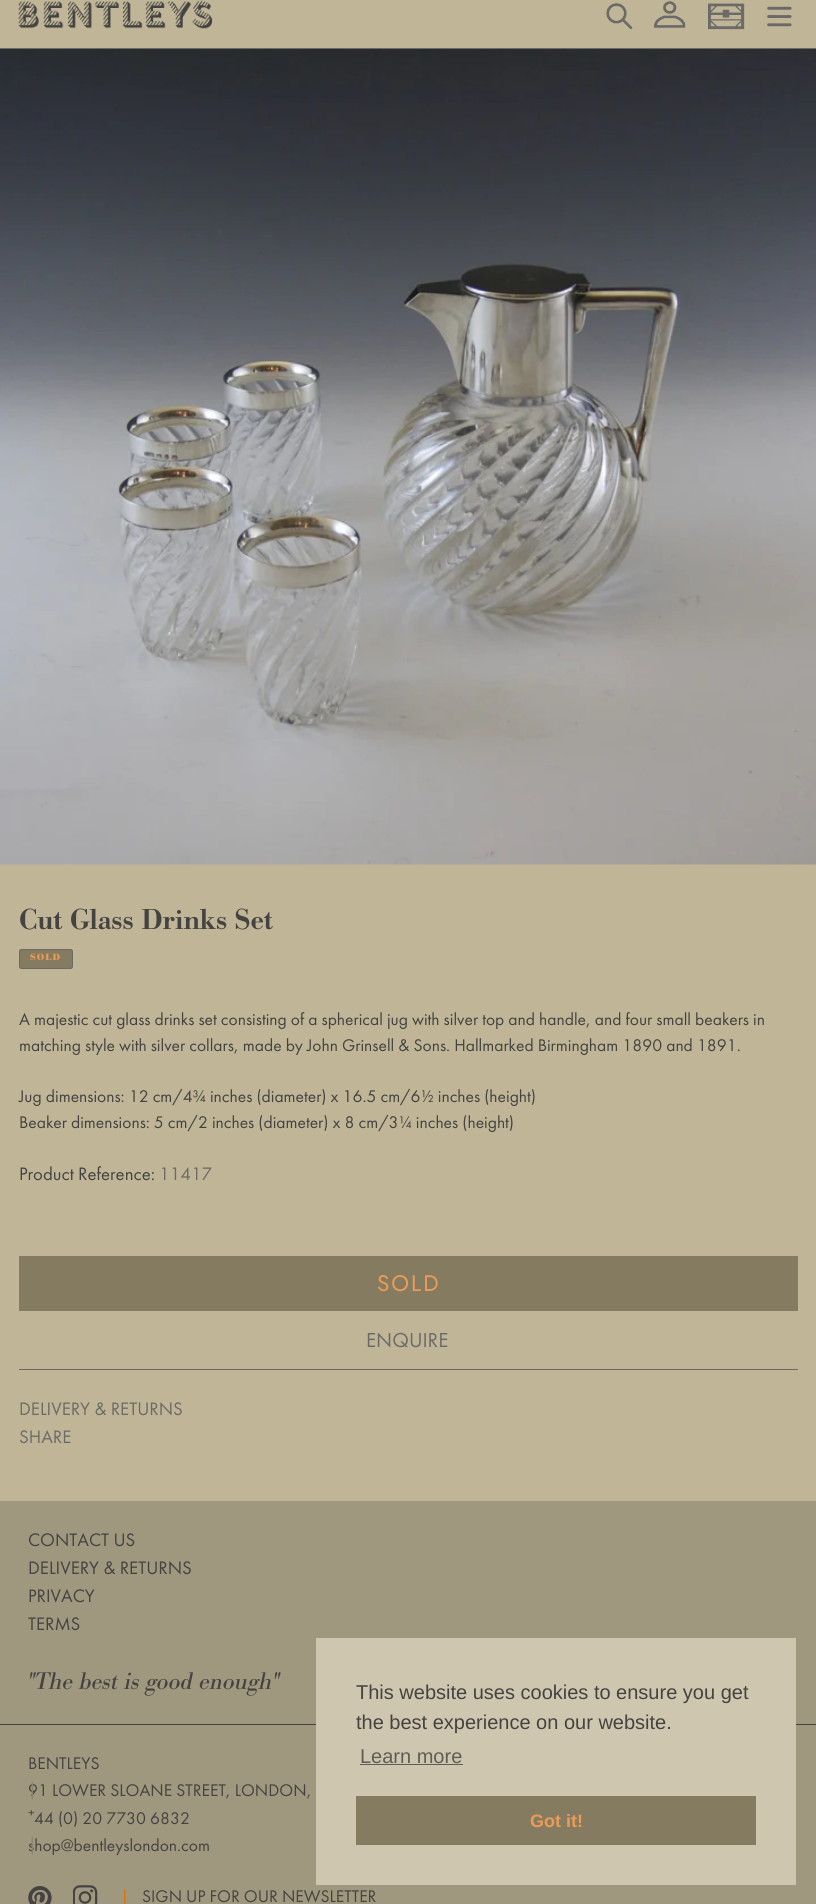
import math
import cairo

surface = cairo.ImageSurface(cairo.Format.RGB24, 816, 1904)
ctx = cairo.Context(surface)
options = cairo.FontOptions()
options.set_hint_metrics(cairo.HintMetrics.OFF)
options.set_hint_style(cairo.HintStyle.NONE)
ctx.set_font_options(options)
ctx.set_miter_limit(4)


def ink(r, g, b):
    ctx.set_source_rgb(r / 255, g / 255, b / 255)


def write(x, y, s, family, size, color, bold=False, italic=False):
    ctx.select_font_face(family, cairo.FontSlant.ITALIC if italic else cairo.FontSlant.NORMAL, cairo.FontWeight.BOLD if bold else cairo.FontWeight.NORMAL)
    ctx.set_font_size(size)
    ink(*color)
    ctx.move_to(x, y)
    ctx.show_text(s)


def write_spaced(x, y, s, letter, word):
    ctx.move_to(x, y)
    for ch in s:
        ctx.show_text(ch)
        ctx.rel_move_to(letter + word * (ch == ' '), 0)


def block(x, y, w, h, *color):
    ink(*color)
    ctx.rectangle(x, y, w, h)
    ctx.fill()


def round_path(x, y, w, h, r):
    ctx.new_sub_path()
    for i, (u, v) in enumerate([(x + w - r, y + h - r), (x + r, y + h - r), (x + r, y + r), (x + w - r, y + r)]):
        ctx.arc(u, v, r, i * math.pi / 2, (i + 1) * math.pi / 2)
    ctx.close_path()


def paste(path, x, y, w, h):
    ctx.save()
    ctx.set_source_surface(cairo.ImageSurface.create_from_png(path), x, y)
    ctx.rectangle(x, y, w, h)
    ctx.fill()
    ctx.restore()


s1 = dict(family="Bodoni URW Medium", size=30, color=(68, 67, 65))
s2 = dict(family="Futura PT", size=17.5, color=(68, 67, 65))
s3 = dict(family="Futura PT", size=18.75, color=(68, 67, 65))
s4 = dict(family="Futura PT", size=18.75, color=(107, 106, 102))
s5 = dict(family="Futura PT", size=21, color=(107, 106, 102))
s6 = dict(family="Bodoni URW", size=25, color=(68, 67, 65), italic=True)
s7 = dict(family="Futura PT", size=17.5, color=(138, 131, 112))
s8 = dict(family="Futura PT", size=13, color=(68, 67, 65))
s9 = dict(family="Futura PT", size=18.75, color=(226, 112, 12))
s10 = dict(family="Liberation Sans", size=20, color=(68, 67, 65))
s11 = dict(family="Liberation Sans", size=20, color=(96, 93, 87))
s12 = dict(family="Liberation Sans", size=18, color=(235, 155, 85), bold=True)

ink(192, 182, 151)
ctx.paint()
block(0, 48, 816, 1, 107, 106, 102)
paste("pic1.png", 18, 0, 195, 29)
paste("pic2.png", 606, 3, 27, 26)
paste("pic3.png", 654, 1, 32, 27)
paste("pic4.png", 708, 3, 37, 27)
paste("pic5.png", 767, 6, 25, 21)
paste("pic6.png", 0, 49, 816, 816)
write(19, 929, "Cut Glass Drinks Set", **s1)
ink(132, 123, 96)
round_path(19.5, 949.5, 53, 19, 2)
ctx.fill_preserve()
ink(107, 106, 102)
ctx.set_line_width(1)
ctx.stroke()
ctx.select_font_face("Bodoni URW", cairo.FontSlant.NORMAL, cairo.FontWeight.BOLD)
ctx.set_font_size(9.5)
ink(235, 155, 85)
write_spaced(30, 960, "SOLD", 1, 0)
write(19, 1025, "A majestic cut glass drinks set consisting of a spherical jug with silver top and handle, and four small beakers in", **s2)
write(19, 1051, "matching style with silver collars, made by John Grinsell & Sons. Hallmarked Birmingham 1890 and 1891.", **s2)
write(19, 1102, "Jug dimensions: 12 cm/4¾ inches (diameter) x 16.5 cm/6½ inches (height)", **s2)
write(19, 1128, "Beaker dimensions: 5 cm/2 inches (diameter) x 8 cm/3¼ inches (height)", **s2)
write(19, 1180, "Product Reference:", **s3)
write(159, 1180, "11417", **s4)
block(19, 1256, 779, 55, 132, 123, 96)
ctx.select_font_face("Jost")
ctx.set_font_size(22.5)
ink(235, 155, 85)
write_spaced(377, 1291, "SOLD", 2, 0)
block(19, 1369, 779, 1, 107, 106, 102)
write(366, 1347, "ENQUIRE", **s5)
write(19, 1415, "DELIVERY & RETURNS", **s4)
write(19, 1443, "SHARE", **s4)
block(0, 1501, 816, 403, 159, 151, 126)
write(28, 1546, "CONTACT US", **s3)
write(28, 1574, "DELIVERY & RETURNS", **s3)
write(28, 1602, "PRIVACY", **s3)
write(28, 1630, "TERMS", **s3)
write(28, 1689, "\"The best is good enough\"", **s6)
block(0, 1724, 816, 1, 68, 67, 65)
write(28, 1769, "BENTLEYS", **s2)
write(28, 1796, "91 LOWER SLOANE STREET, LONDON,", **s2)
write(28, 1795, "|", **s7)
write(28, 1817, "+", **s8)
write(34, 1824, "44 (0) 20 7730 6832", **s2)
write(28, 1851, "shop@bentleyslondon.com", **s2)
write(28, 1850, "|", **s7)
paste("pic7.png", 28, 1886, 24, 18)
paste("pic8.png", 73, 1885, 25, 19)
write(120, 1904, "|", **s9)
write(142, 1902, "SIGN UP FOR OUR NEWSLETTER", **s2)
block(316, 1638, 480, 247, 206, 198, 174)
write(356, 1699, "This website uses cookies to ensure you get", **s10)
write(356, 1729, "the best experience on our website.", **s10)
write(360, 1763, "Learn more", **s11)
block(360, 1764, 103, 1, 96, 93, 87)
block(356, 1796, 400, 49, 132, 123, 96)
write(530, 1827, "Got it!", **s12)
surface.write_to_png("screenshot.png")
